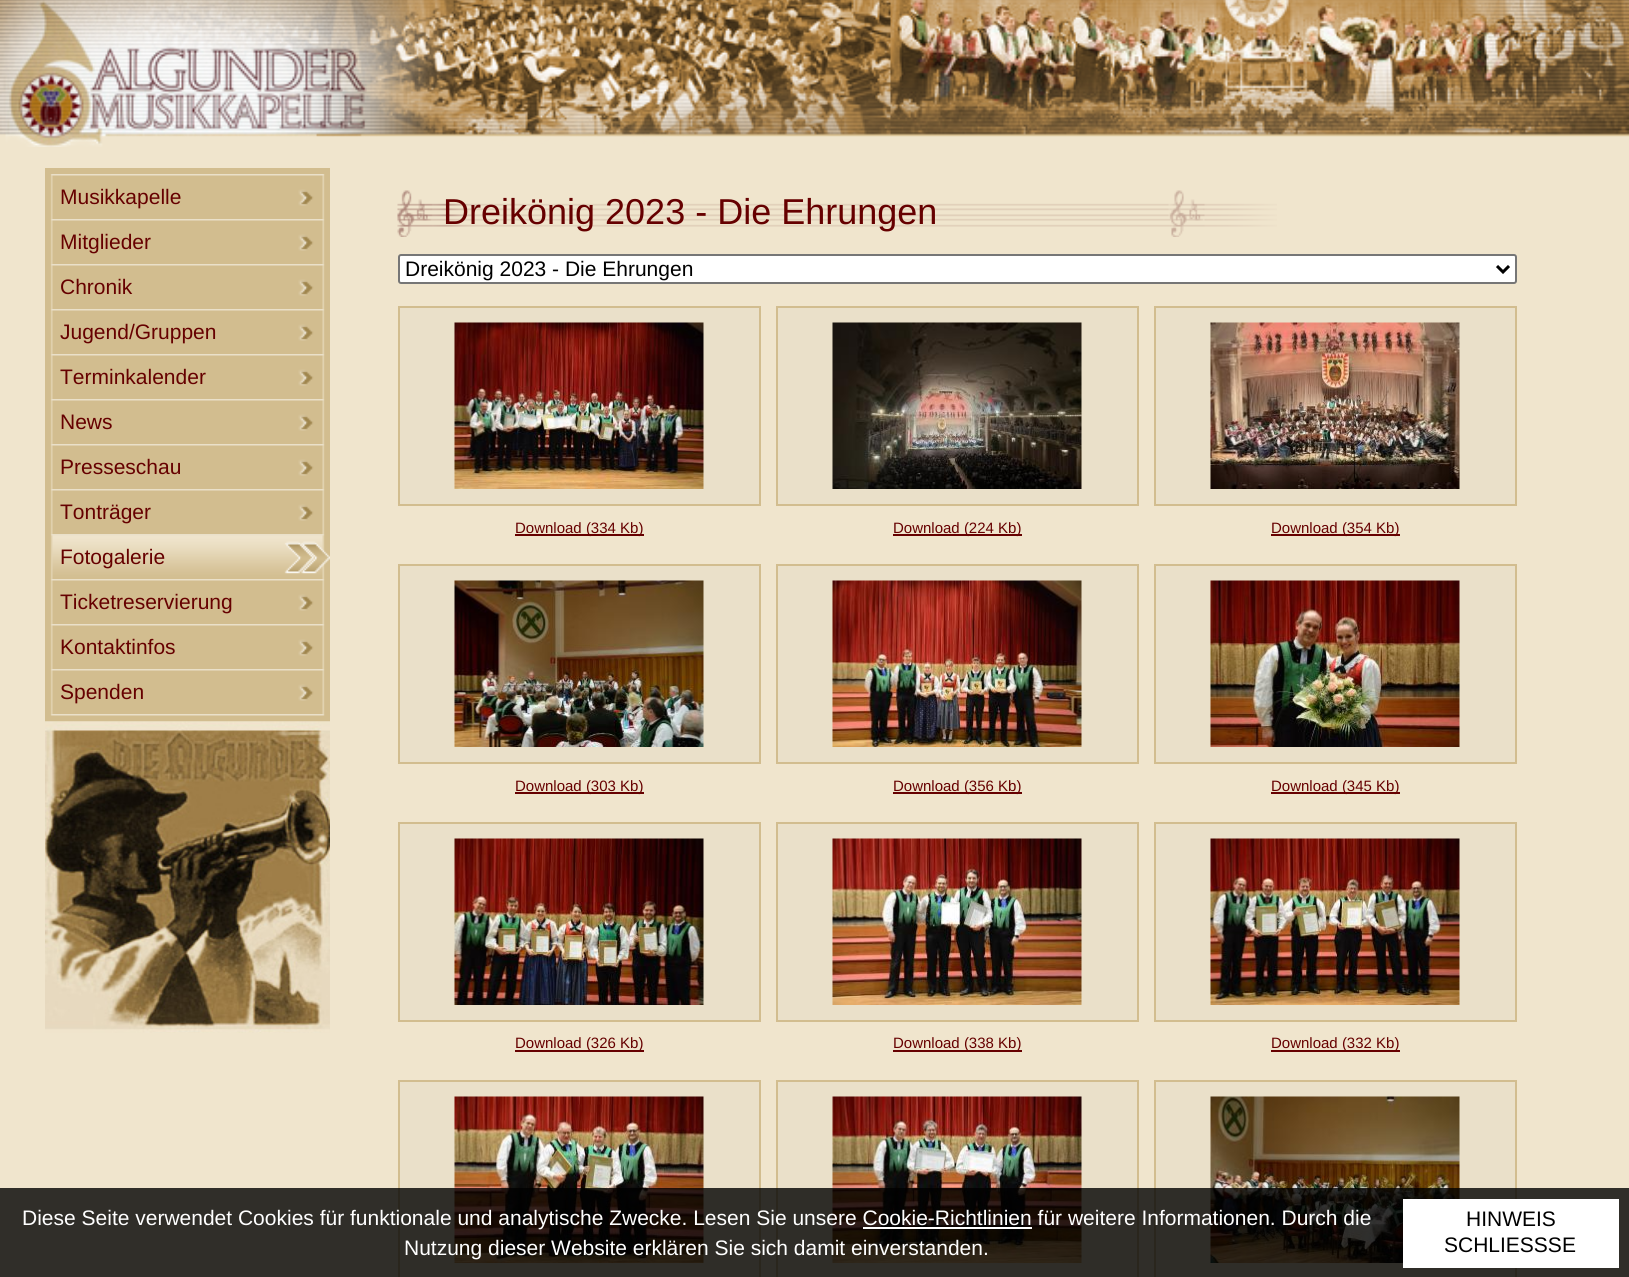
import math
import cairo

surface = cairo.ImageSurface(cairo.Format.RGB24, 1629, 1277)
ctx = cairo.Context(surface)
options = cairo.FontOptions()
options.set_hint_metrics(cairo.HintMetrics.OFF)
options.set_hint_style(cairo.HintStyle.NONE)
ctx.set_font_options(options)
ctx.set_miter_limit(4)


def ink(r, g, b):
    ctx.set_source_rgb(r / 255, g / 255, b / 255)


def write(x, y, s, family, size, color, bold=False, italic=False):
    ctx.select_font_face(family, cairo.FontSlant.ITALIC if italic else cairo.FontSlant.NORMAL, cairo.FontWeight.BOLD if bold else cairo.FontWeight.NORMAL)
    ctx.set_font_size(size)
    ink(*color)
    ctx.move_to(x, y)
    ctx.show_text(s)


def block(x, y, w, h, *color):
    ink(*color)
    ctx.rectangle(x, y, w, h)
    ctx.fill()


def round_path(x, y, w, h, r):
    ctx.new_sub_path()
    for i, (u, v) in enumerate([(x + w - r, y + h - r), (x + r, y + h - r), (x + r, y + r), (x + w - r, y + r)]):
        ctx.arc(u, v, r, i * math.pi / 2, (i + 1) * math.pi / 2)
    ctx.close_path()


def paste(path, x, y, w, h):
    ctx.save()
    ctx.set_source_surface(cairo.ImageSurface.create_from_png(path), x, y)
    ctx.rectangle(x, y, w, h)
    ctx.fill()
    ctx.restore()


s1 = dict(family="Liberation Sans", size=21, color=(102, 0, 0))
s2 = dict(family="Liberation Sans", size=36, color=(102, 0, 0))
s3 = dict(family="Liberation Sans", size=21, color=(0, 0, 0))
s4 = dict(family="Liberation Sans", size=15, color=(102, 0, 0))
s5 = dict(family="Liberation Sans", size=21, color=(255, 255, 255))

ink(240, 229, 205)
ctx.paint()
paste("pic1.png", 0, 0, 1629, 147)
block(45, 168, 285, 546, 210, 189, 143)
paste("pic2.png", 50, 174, 275, 45)
write(60, 204, "Musikkapelle", **s1)
paste("pic2.png", 50, 219, 275, 45)
write(60, 249, "Mitglieder", **s1)
paste("pic2.png", 50, 264, 275, 45)
write(60, 294, "Chronik", **s1)
paste("pic2.png", 50, 309, 275, 45)
write(60, 339, "Jugend/Gruppen", **s1)
paste("pic2.png", 50, 354, 275, 45)
write(60, 384, "Terminkalender", **s1)
paste("pic2.png", 50, 399, 275, 45)
write(60, 429, "News", **s1)
paste("pic2.png", 50, 444, 275, 45)
write(60, 474, "Presseschau", **s1)
paste("pic2.png", 50, 489, 275, 45)
write(60, 519, "Tonträger", **s1)
paste("pic3.png", 50, 534, 280, 45)
write(60, 564, "Fotogalerie", **s1)
paste("pic2.png", 50, 579, 275, 45)
write(60, 609, "Ticketreservierung", **s1)
paste("pic2.png", 50, 624, 275, 45)
write(60, 654, "Kontaktinfos", **s1)
paste("pic2.png", 50, 669, 275, 45)
write(60, 699, "Spenden", **s1)
paste("pic4.png", 45, 714, 285, 8)
paste("pic5.png", 45, 721, 285, 312)
paste("pic6.png", 397, 190, 880, 47)
write(443, 224, "Dreikönig 2023 - Die Ehrungen", **s2)
ink(255, 255, 255)
round_path(399, 255, 1117, 28, 2)
ctx.fill_preserve()
ink(118, 118, 118)
ctx.stroke()
ctx.new_path()
ctx.move_to(1497, 266)
ctx.line_to(1503, 272)
ctx.line_to(1509, 266)
ink(0, 0, 0)
ctx.set_line_width(3)
ctx.stroke()
write(405, 276, "Dreikönig 2023 - Die Ehrungen", **s3)
ink(234, 224, 201)
ctx.rectangle(399, 307, 361, 198)
ctx.fill_preserve()
ink(210, 189, 143)
ctx.set_line_width(2)
ctx.stroke()
paste("pic7.png", 454, 322, 250, 167)
block(515, 534, 129, 2, 102, 0, 0)
write(515, 533, "Download (334 Kb)", **s4)
ink(234, 224, 201)
ctx.rectangle(777, 307, 361, 198)
ctx.fill_preserve()
ink(210, 189, 143)
ctx.stroke()
paste("pic8.png", 832, 322, 250, 167)
block(893, 534, 129, 2, 102, 0, 0)
write(893, 533, "Download (224 Kb)", **s4)
ink(234, 224, 201)
ctx.rectangle(1155, 307, 361, 198)
ctx.fill_preserve()
ink(210, 189, 143)
ctx.stroke()
paste("pic9.png", 1210, 322, 250, 167)
block(1271, 534, 129, 2, 102, 0, 0)
write(1271, 533, "Download (354 Kb)", **s4)
ink(234, 224, 201)
ctx.rectangle(399, 565, 361, 198)
ctx.fill_preserve()
ink(210, 189, 143)
ctx.stroke()
paste("pic10.png", 454, 580, 250, 167)
block(515, 792, 129, 2, 102, 0, 0)
write(515, 791, "Download (303 Kb)", **s4)
ink(234, 224, 201)
ctx.rectangle(777, 565, 361, 198)
ctx.fill_preserve()
ink(210, 189, 143)
ctx.stroke()
paste("pic11.png", 832, 580, 250, 167)
block(893, 792, 129, 2, 102, 0, 0)
write(893, 791, "Download (356 Kb)", **s4)
ink(234, 224, 201)
ctx.rectangle(1155, 565, 361, 198)
ctx.fill_preserve()
ink(210, 189, 143)
ctx.stroke()
paste("pic12.png", 1210, 580, 250, 167)
block(1271, 792, 129, 2, 102, 0, 0)
write(1271, 791, "Download (345 Kb)", **s4)
ink(234, 224, 201)
ctx.rectangle(399, 823, 361, 198)
ctx.fill_preserve()
ink(210, 189, 143)
ctx.stroke()
paste("pic13.png", 454, 838, 250, 167)
block(515, 1050, 129, 2, 102, 0, 0)
write(515, 1048, "Download (326 Kb)", **s4)
ink(234, 224, 201)
ctx.rectangle(777, 823, 361, 198)
ctx.fill_preserve()
ink(210, 189, 143)
ctx.stroke()
paste("pic14.png", 832, 838, 250, 167)
block(893, 1050, 129, 2, 102, 0, 0)
write(893, 1048, "Download (338 Kb)", **s4)
ink(234, 224, 201)
ctx.rectangle(1155, 823, 361, 198)
ctx.fill_preserve()
ink(210, 189, 143)
ctx.stroke()
paste("pic15.png", 1210, 838, 250, 167)
block(1271, 1050, 129, 2, 102, 0, 0)
write(1271, 1048, "Download (332 Kb)", **s4)
ink(234, 224, 201)
ctx.rectangle(399, 1081, 361, 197)
ctx.fill_preserve()
ink(210, 189, 143)
ctx.stroke()
paste("pic16.png", 454, 1096, 250, 167)
ink(234, 224, 201)
ctx.rectangle(777, 1081, 361, 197)
ctx.fill_preserve()
ink(210, 189, 143)
ctx.stroke()
paste("pic17.png", 832, 1096, 250, 167)
ink(234, 224, 201)
ctx.rectangle(1155, 1081, 361, 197)
ctx.fill_preserve()
ink(210, 189, 143)
ctx.stroke()
paste("pic18.png", 1210, 1096, 250, 167)
ctx.set_source_rgba(0, 0, 0, 0.8)
ctx.rectangle(0, 1188, 1629, 89)
ctx.fill()
write(22, 1225, "Diese Seite verwendet Cookies für funktionale und analytische Zwecke. Lesen Sie unsere Cookie-Richtlinien für weitere Informationen. Durch die", **s5)
block(863, 1227, 169, 2, 255, 255, 255)
write(404, 1255, "Nutzung dieser Website erklären Sie sich damit einverstanden.", **s5)
block(1403, 1199, 216, 69, 255, 255, 255)
write(1466, 1226, "HINWEIS", **s3)
write(1444, 1252, "SCHLIESSSE", **s3)
surface.write_to_png("screenshot.png")
